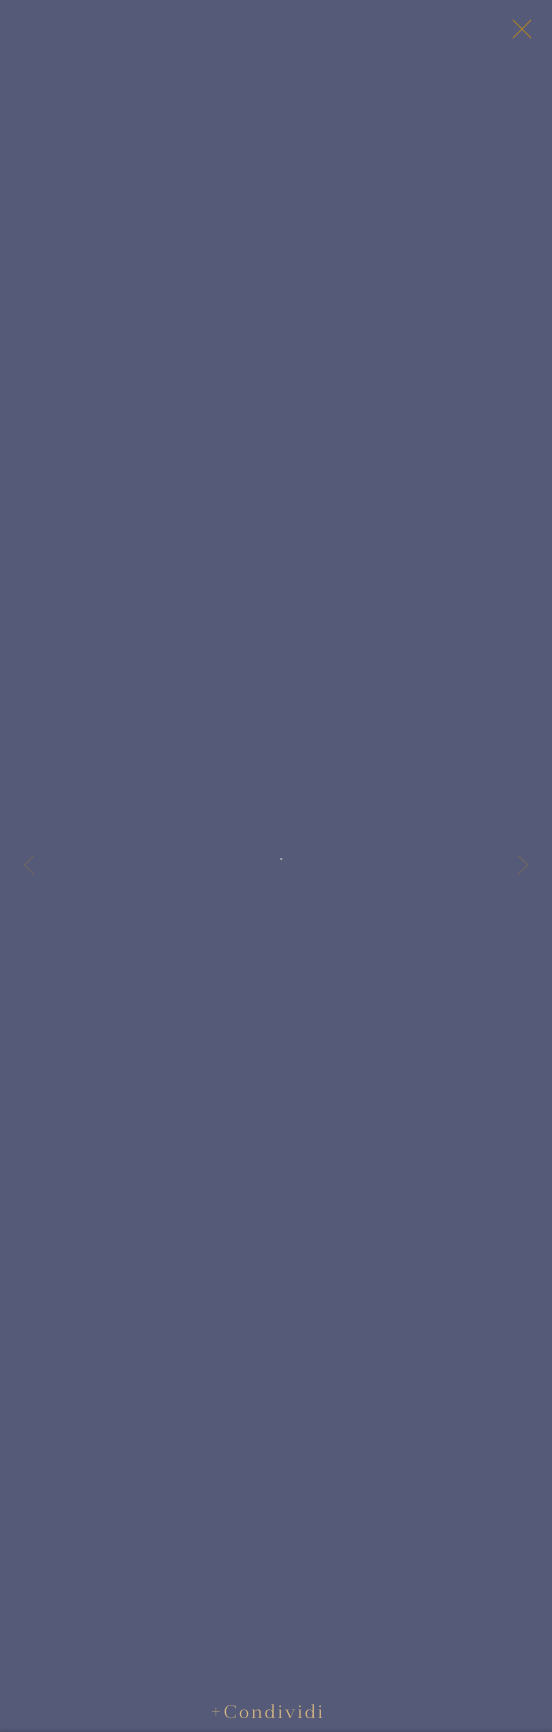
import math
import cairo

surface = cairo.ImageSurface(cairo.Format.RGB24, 552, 1732)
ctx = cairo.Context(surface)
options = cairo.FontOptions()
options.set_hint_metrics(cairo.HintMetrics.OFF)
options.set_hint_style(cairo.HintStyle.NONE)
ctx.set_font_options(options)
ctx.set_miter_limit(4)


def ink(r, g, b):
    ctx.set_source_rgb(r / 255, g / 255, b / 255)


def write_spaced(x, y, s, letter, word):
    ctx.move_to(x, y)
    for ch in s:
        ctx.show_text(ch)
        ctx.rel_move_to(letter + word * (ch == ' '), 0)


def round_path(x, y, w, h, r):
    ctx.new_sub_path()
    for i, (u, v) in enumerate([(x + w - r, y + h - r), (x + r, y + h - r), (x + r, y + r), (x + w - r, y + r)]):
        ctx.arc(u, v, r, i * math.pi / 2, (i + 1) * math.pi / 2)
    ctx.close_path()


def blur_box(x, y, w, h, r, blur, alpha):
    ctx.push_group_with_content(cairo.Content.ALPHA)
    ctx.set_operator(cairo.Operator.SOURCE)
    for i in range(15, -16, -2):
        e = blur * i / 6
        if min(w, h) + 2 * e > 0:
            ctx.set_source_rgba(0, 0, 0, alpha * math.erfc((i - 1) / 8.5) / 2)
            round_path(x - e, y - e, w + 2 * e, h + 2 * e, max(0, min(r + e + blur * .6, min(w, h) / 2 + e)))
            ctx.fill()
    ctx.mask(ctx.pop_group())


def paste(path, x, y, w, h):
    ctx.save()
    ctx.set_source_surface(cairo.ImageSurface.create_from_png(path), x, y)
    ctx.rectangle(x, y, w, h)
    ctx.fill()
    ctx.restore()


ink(84, 90, 119)
ctx.paint()
paste("pic1.png", 512, 19, 20, 20)
paste("pic2.png", 24, 855, 10, 20)
ink(111, 101, 96)
ctx.new_path()
ctx.move_to(528.5, 865)
ctx.line_to(518.5, 855)
ctx.line_to(517.5, 856)
ctx.line_to(527, 865)
ctx.line_to(517.5, 874)
ctx.line_to(518.5, 875)
ctx.close_path()
ctx.fill()
ctx.new_path()
ctx.move_to(281, 859)
ctx.line_to(281.5, 859)
ink(187, 187, 187)
ctx.set_line_width(1.8)
ctx.set_line_cap(cairo.LineCap.ROUND)
ctx.stroke()
ctx.select_font_face("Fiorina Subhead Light")
ctx.set_font_size(18.25)
ink(216, 183, 130)
write_spaced(210, 1718, "+Condividi", 1.75, 0)
ink(0, 0, 0)
blur_box(0, 1732, 552, 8, 0, 2.5, 0.23)
surface.write_to_png("screenshot.png")
